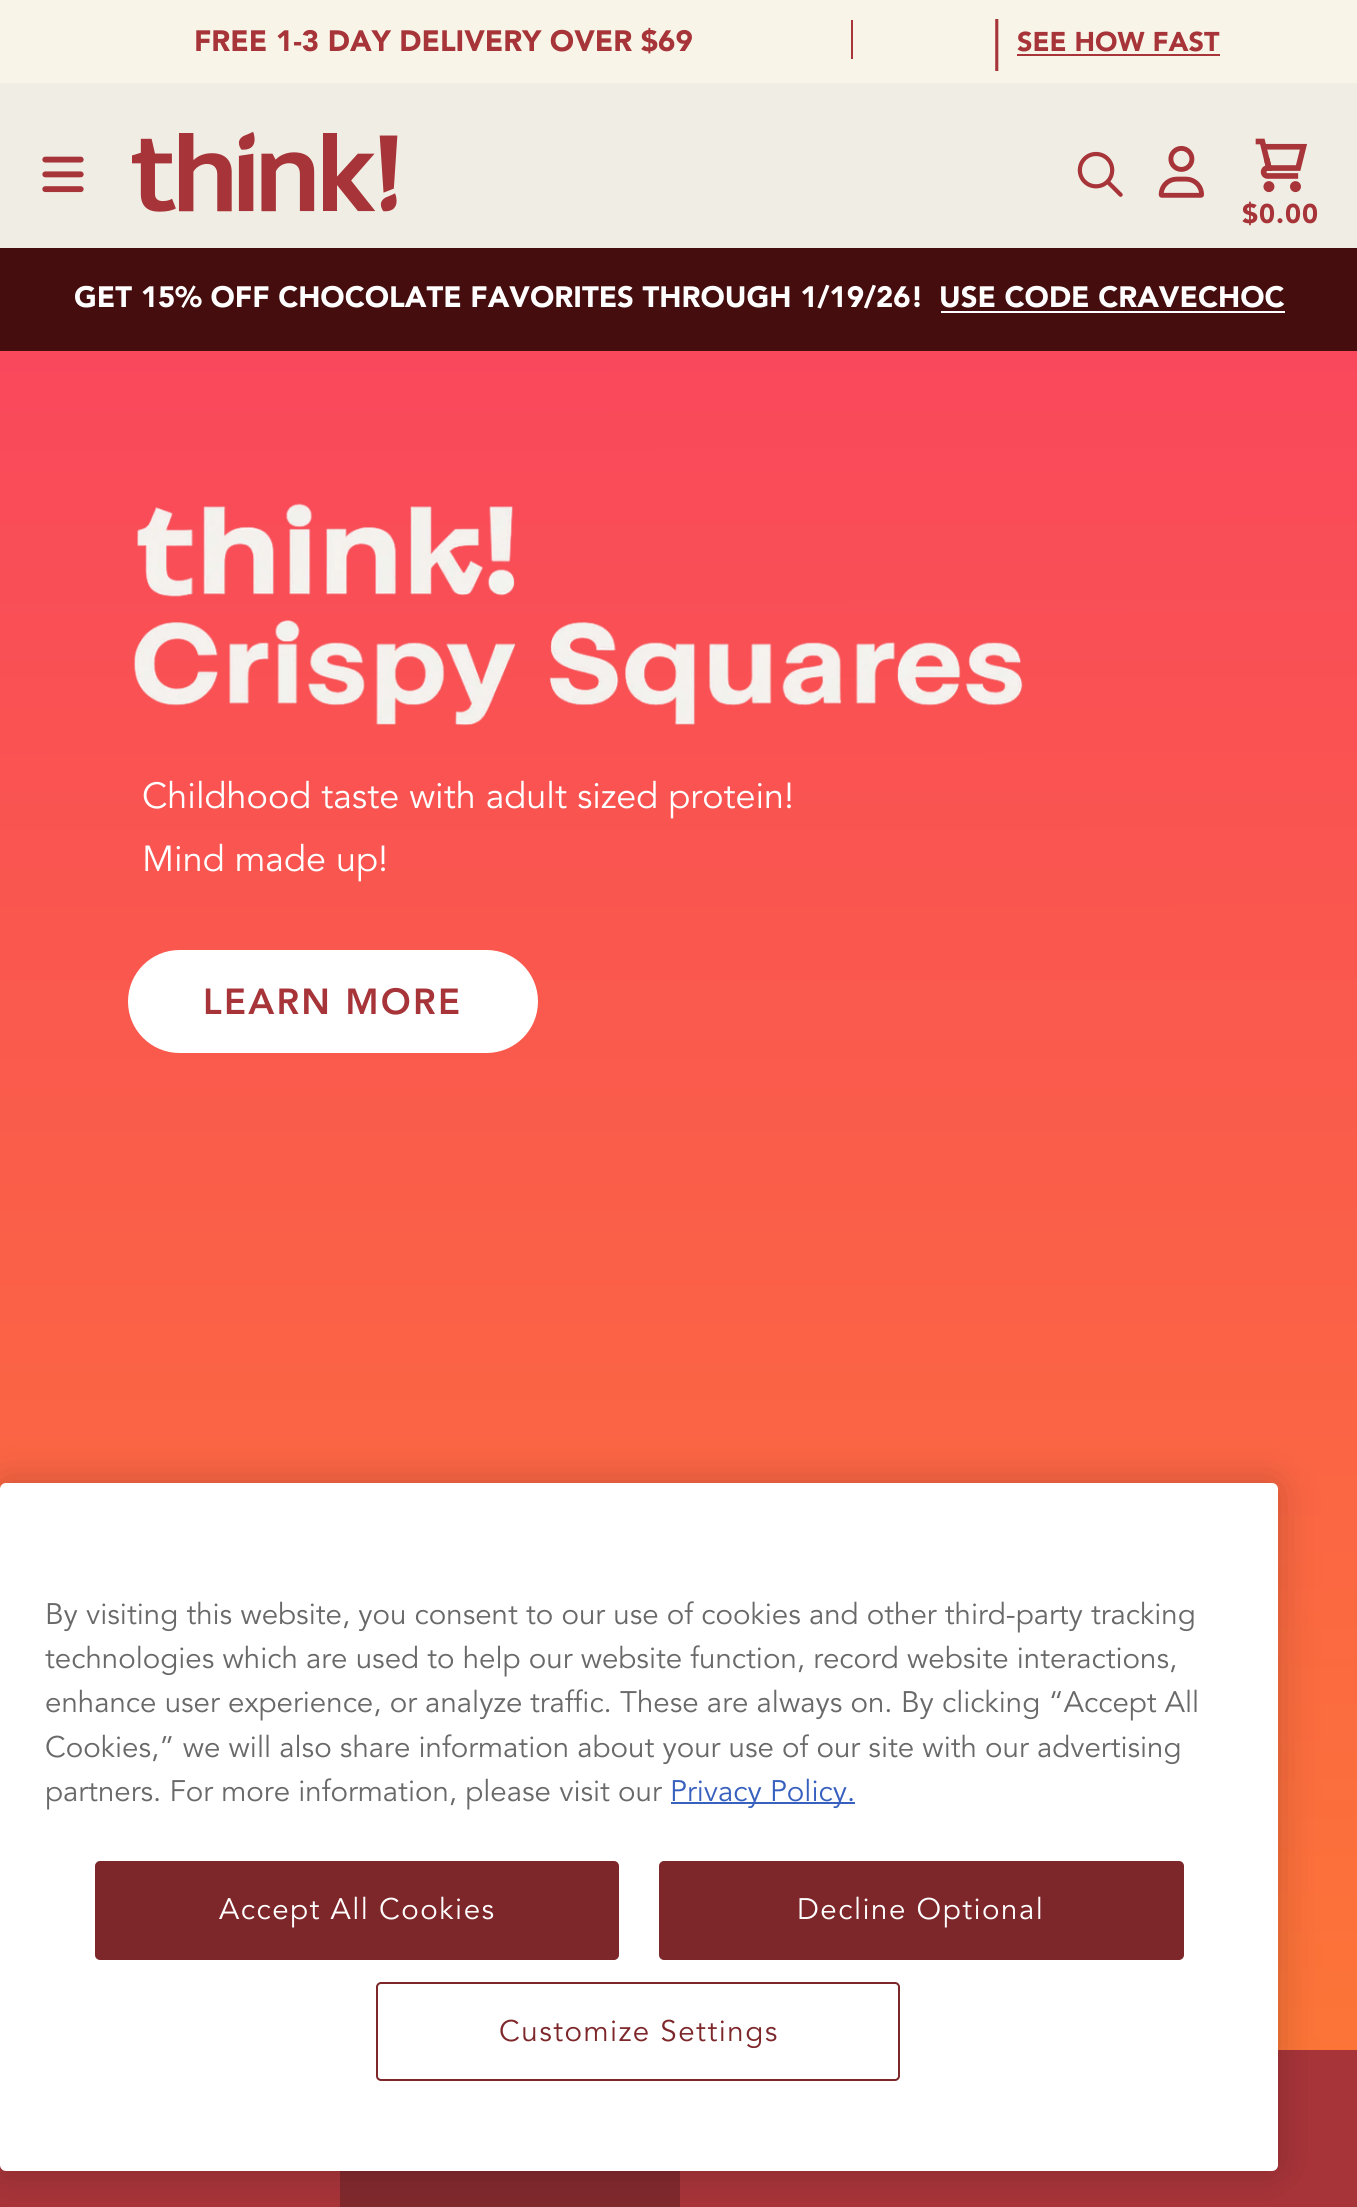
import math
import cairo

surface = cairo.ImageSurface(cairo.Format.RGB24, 1357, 2207)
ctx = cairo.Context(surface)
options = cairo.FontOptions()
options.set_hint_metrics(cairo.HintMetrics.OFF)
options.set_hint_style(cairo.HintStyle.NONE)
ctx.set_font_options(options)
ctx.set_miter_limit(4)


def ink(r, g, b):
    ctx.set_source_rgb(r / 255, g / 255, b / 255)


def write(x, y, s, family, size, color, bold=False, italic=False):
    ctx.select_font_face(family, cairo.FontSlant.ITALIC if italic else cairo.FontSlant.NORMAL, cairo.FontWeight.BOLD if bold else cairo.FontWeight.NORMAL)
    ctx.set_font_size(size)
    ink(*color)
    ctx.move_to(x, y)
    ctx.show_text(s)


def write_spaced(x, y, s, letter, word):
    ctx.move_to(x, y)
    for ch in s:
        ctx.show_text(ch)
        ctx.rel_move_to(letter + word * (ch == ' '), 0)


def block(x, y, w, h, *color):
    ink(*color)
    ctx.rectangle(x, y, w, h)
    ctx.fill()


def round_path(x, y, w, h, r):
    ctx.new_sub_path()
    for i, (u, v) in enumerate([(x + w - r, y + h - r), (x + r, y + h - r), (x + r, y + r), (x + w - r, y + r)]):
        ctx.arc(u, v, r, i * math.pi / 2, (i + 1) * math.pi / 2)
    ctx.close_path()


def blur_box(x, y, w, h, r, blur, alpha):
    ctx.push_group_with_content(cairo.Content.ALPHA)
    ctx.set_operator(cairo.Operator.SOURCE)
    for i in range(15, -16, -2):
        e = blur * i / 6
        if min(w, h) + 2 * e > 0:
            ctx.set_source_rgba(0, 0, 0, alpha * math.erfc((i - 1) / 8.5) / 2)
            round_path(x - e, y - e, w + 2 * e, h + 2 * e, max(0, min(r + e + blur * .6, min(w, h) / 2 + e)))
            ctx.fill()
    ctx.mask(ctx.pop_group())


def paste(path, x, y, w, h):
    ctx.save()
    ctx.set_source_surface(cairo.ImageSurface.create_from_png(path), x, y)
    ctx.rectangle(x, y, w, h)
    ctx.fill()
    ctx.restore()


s1 = dict(family="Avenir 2 Black", size=29.25, color=(167, 52, 57))
s2 = dict(family="Avenir 2", size=52, color=(167, 52, 57))
s3 = dict(family="Avenir 2 Black", size=27, color=(167, 52, 57))
s4 = dict(family="Avenir 2 Black", size=29.25, color=(255, 255, 255))
s5 = dict(family="Avenir", size=36, color=(255, 255, 255))
s6 = dict(family="Avenir", size=29.5, color=(105, 105, 105))
s7 = dict(family="Avenir", size=29.5, color=(56, 96, 190))

ink(255, 255, 255)
ctx.paint()
block(0, 0, 1357, 83, 248, 245, 232)
block(851, 20, 2, 39, 168, 53, 58)
write(194, 51, "FREE 1-3 DAY DELIVERY OVER $69", **s1)
write(991, 58, "|", **s2)
write(1017, 51, "SEE HOW FAST", **s3)
block(1017, 54, 203, 2, 168, 53, 58)
block(0, 83, 1357, 165, 240, 238, 228)
paste("pic1.png", 42, 156, 42, 37)
paste("pic2.png", 132, 131, 266, 81)
paste("pic3.png", 1077, 151, 46, 46)
paste("pic4.png", 1158, 146, 46, 52)
paste("pic5.png", 1255, 138, 52, 55)
ink(167, 52, 57)
write_spaced(1242, 223, "$0.00", 1, 0)
block(0, 248, 1357, 103, 70, 13, 14)
write(74, 307, "GET 15% OFF CHOCOLATE FAVORITES THROUGH 1/19/26!", **s4)
write(939, 307, "USE CODE CRAVECHOC", **s4)
block(941, 311, 344, 2, 255, 255, 255)
gradient = cairo.LinearGradient(679, 351, 680, 2106)
gradient.add_color_stop_rgba(0, 0.976, 0.282, 0.357, 1)
gradient.add_color_stop_rgba(1, 0.988, 0.463, 0.212, 1)
ctx.set_source(gradient)
ctx.rectangle(0, 351, 1357, 1699)
ctx.fill()
paste("pic6.png", 134, 503, 889, 223)
write(142, 808, "Childhood taste with adult sized protein!", **s5)
write(142, 871, "Mind made up!", **s5)
round_path(128, 950, 410, 103, 51.5)
ctx.fill()
ctx.select_font_face("Avenir Black")
ink(167, 52, 57)
write_spaced(203, 1014, "LEARN MORE", 2.25, 0)
block(0, 2050, 1357, 157, 167, 52, 57)
block(340, 2171, 340, 36, 129, 41, 45)
ink(0, 0, 0)
blur_box(0, 1483, 1278, 688, 6, 20, 0.2)
ink(255, 255, 255)
round_path(0, 1483, 1278, 688, 6)
ctx.fill()
write(45, 1624, "By visiting this website, you consent to our use of cookies and other third-party tracking", **s6)
write(45, 1668, "technologies which are used to help our website function, record website interactions,", **s6)
write(45, 1712, "enhance user experience, or analyze", **s6)
write(530, 1712, "traffic. These are always on.", **s6)
write(901, 1712, "By clicking “Accept All", **s6)
write(45, 1757, "Cookies,” we will also share information about your use of our site with our advertising", **s6)
write(45, 1801, "partners. For more information, please visit our", **s6)
block(671, 1802, 184, 2, 56, 96, 190)
write(670, 1801, "Privacy Policy.", **s7)
ink(125, 39, 42)
round_path(96, 1862, 522, 97, 4)
ctx.fill_preserve()
ctx.stroke()
ink(255, 255, 255)
write_spaced(219, 1919, "Accept All Cookies", 1.5, 0)
ink(125, 39, 42)
round_path(660, 1862, 523, 97, 4)
ctx.fill_preserve()
ctx.stroke()
ink(255, 255, 255)
write_spaced(797, 1919, "Decline Optional", 1.5, 0)
round_path(377, 1983, 522, 97, 4)
ink(125, 39, 42)
ctx.stroke()
write_spaced(499, 2041, "Customize Settings", 1.5, 0)
surface.write_to_png("screenshot.png")
